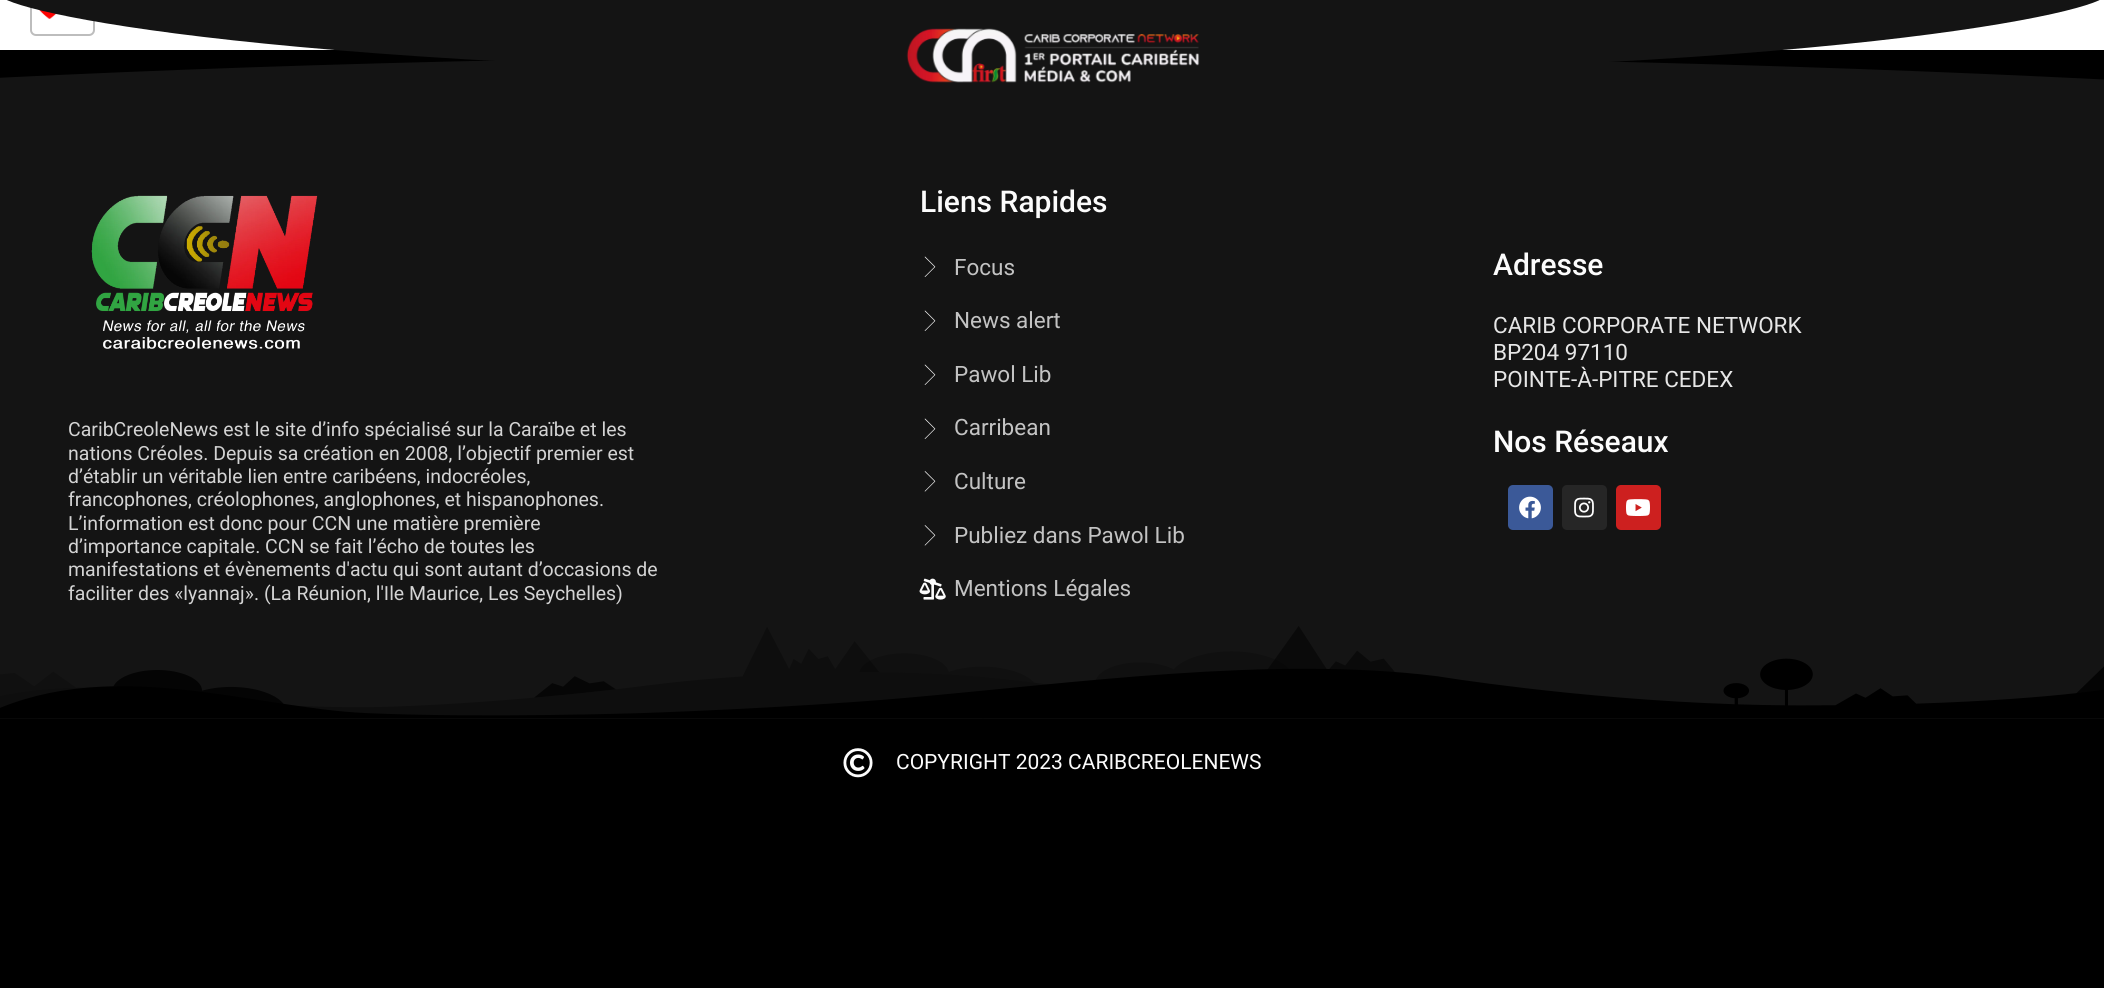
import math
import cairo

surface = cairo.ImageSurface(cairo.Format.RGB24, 2104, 988)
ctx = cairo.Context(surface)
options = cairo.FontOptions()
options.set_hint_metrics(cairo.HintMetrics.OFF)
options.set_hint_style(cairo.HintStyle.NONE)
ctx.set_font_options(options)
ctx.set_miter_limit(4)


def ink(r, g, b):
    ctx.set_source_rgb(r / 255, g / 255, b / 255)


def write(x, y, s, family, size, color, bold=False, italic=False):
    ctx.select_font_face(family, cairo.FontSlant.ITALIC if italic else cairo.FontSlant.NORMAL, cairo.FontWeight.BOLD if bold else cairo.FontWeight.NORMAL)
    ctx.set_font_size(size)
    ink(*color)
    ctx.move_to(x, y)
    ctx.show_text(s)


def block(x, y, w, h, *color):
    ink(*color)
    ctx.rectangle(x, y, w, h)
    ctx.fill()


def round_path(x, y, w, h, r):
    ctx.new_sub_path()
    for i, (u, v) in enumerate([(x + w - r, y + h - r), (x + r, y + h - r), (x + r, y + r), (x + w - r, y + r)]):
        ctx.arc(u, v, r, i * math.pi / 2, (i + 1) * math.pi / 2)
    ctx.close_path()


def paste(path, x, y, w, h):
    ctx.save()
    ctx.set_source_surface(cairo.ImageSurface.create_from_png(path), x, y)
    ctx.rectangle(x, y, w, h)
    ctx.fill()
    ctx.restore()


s1 = dict(family="Roboto Medium", size=30, color=(252, 252, 252))
s2 = dict(family="Roboto", size=22.5, color=(195, 195, 195))
s3 = dict(family="Roboto", size=22.5, color=(230, 230, 230))
s4 = dict(family="Roboto", size=19.5, color=(211, 211, 211))
s5 = dict(family="Roboto", size=21, color=(252, 252, 252))

ink(255, 255, 255)
ctx.paint()
round_path(31, -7, 63, 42, 5)
ink(189, 189, 189)
ctx.stroke()
paste("pic1.png", 38, 9, 19, 10)
block(0, 60, 2104, 659, 20, 20, 20)
ctx.save()
ctx.rectangle(0, 50, 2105, 213)
ctx.clip()
ink(0, 0, 0)
ctx.new_path()
ctx.move_to(1051, 55)
ctx.curve_to(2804, 57, 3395, 220, 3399, 262)
ctx.line_to(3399, 49)
ctx.line_to(-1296, 49)
ctx.line_to(-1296, 260)
ctx.curve_to(-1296, 220, -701, 53, 1051, 55)
ctx.close_path()
ctx.fill()
ctx.restore()
ctx.new_path()
ctx.move_to(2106, -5)
ctx.line_to(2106, -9)
ctx.line_to(0, -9)
ctx.line_to(0, -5)
ctx.curve_to(2, 10, 267, 74, 1053, 75)
ctx.curve_to(1839, 76, 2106, 10, 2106, -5)
ctx.close_path()
ctx.fill()
paste("pic2.png", 906, 28, 294, 55)
write(920, 212, "Liens Rapides", **s1)
paste("pic3.png", 924, 256, 12, 21)
write(954, 275, "Focus", **s2)
paste("pic3.png", 924, 310, 12, 21)
write(954, 328, "News alert", **s2)
paste("pic3.png", 924, 364, 12, 21)
write(954, 382, "Pawol Lib", **s2)
paste("pic3.png", 924, 418, 12, 21)
write(954, 435, "Carribean", **s2)
paste("pic4.png", 924, 471, 12, 21)
write(954, 489, "Culture", **s2)
paste("pic4.png", 924, 525, 12, 21)
write(954, 543, "Publiez dans Pawol Lib", **s2)
paste("pic5.png", 919, 578, 27, 22)
write(954, 596, "Mentions Légales", **s2)
write(1493, 275, "Adresse", **s1)
write(1493, 333, "CARIB CORPORATE NETWORK", **s3)
write(1493, 360, "BP204 97110", **s3)
write(1493, 387, "POINTE-À-PITRE CEDEX", **s3)
write(1493, 452, "Nos Réseaux", **s1)
ink(59, 89, 152)
round_path(1508, 485, 45, 45, 5)
ctx.fill()
paste("pic6.png", 1519, 496, 22, 23)
ink(38, 38, 38)
round_path(1562, 485, 45, 45, 5)
ctx.fill()
paste("pic7.png", 1574, 497, 20, 21)
ink(205, 32, 31)
round_path(1616, 485, 45, 45, 5)
ctx.fill()
paste("pic8.png", 1626, 499, 24, 17)
paste("pic9.png", 91, 195, 227, 154)
write(68, 436, "CaribCreoleNews est le site d’info spécialisé sur la Caraïbe et les", **s4)
write(68, 460, "nations Créoles. Depuis sa création en 2008, l’objectif premier est", **s4)
write(68, 483, "d’établir un véritable lien entre caribéens, indocréoles,", **s4)
write(68, 506, "francophones, créolophones, anglophones, et hispanophones.", **s4)
write(68, 530, "L’information est donc pour CCN une matière première", **s4)
write(68, 553, "d’importance capitale. CCN se fait l’écho de toutes les", **s4)
write(68, 576, "manifestations et évènements d'actu qui sont autant d’occasions de", **s4)
write(68, 600, "faciliter des «lyannaj». (La Réunion, l'Ile Maurice, Les Seychelles)", **s4)
paste("pic10.png", 0, 626, 2104, 93)
block(0, 719, 2104, 269, 0, 0, 0)
paste("pic11.png", 843, 748, 30, 30)
write(896, 769, "COPYRIGHT 2023 CARIBCREOLENEWS", **s5)
surface.write_to_png("screenshot.png")
